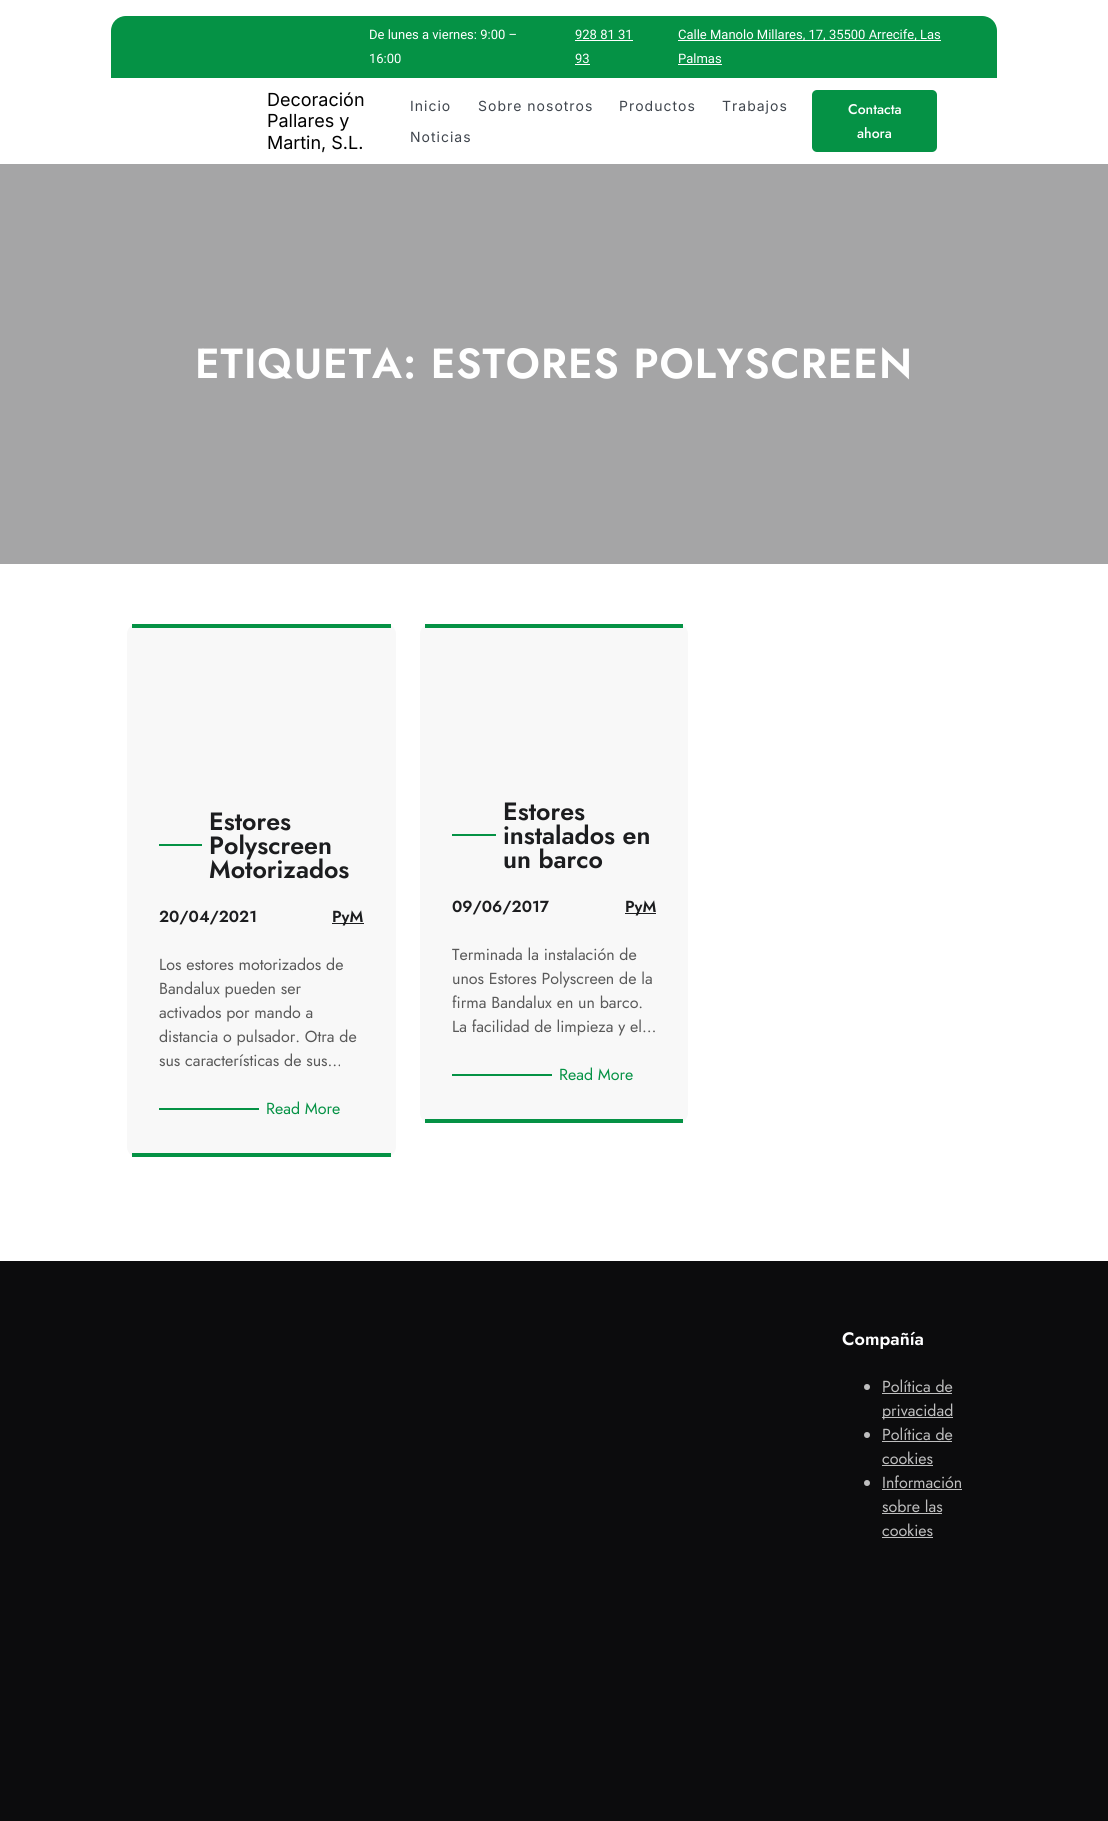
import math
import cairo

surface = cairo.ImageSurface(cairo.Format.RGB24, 1108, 1821)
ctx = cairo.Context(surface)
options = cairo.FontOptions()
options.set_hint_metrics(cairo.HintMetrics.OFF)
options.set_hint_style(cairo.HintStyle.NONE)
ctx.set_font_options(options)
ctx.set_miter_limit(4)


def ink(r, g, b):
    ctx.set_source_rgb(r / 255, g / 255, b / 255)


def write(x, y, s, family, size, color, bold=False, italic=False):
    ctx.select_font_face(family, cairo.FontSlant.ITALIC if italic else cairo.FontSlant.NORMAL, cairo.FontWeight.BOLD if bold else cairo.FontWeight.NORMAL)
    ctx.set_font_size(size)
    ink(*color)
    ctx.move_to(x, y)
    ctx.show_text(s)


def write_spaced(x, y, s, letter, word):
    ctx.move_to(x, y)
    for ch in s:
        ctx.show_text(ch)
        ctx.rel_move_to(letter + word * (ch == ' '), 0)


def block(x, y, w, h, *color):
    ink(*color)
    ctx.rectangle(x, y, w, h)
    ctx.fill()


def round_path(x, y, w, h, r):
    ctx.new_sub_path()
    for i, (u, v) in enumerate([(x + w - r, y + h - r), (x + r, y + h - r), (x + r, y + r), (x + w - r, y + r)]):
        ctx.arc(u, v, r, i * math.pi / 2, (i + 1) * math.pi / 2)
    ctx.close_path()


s1 = dict(family="Roboto", size=13, color=(255, 255, 255))
s2 = dict(family="Inter", size=18, color=(0, 0, 0))
s3 = dict(family="Jost Medium", size=14, color=(255, 255, 255))
s4 = dict(family="Jost SemiBold", size=25, color=(28, 29, 31))
s5 = dict(family="Jost SemiBold", size=16, color=(28, 29, 31))
s6 = dict(family="Jost", size=16, color=(89, 89, 89))
s7 = dict(family="Jost", size=16, color=(5, 146, 69))
s8 = dict(family="Jost SemiBold", size=18, color=(255, 255, 255))
s9 = dict(family="Jost", size=16, color=(191, 191, 191))

ink(255, 255, 255)
ctx.paint()
ink(5, 146, 69)
ctx.new_path()
ctx.move_to(126, 16)
ctx.line_to(982, 16)
ctx.curve_to(990.5, 16, 997, 22.5, 997, 31)
ctx.line_to(997, 78)
ctx.line_to(111, 78)
ctx.line_to(111, 31)
ctx.curve_to(111, 22.5, 117.5, 16, 126, 16)
ctx.close_path()
ctx.fill()
write(369, 39, "De lunes a viernes: 9:00 –", **s1)
write(369, 63, "16:00", **s1)
write(575, 39, "928 81 31", **s1)
block(575, 40, 58, 1, 255, 255, 255)
write(575, 63, "93", **s1)
block(575, 64, 15, 1, 255, 255, 255)
block(678, 40, 263, 1, 255, 255, 255)
write(678, 39, "Calle Manolo Millares, 17, 35500 Arrecife, Las", **s1)
write(678, 63, "Palmas", **s1)
block(678, 64, 44, 1, 255, 255, 255)
write(267, 106, "Decoración", **s2)
write(267, 127, "Pallares y", **s2)
write(267, 149, "Martin, S.L.", **s2)
ctx.set_font_size(14)
ink(63, 69, 77)
write_spaced(410, 111, "Inicio", 1, 0)
write_spaced(478, 111, "Sobre nosotros", 1, 0)
write_spaced(619, 111, "Productos", 1, 0)
write_spaced(722, 111, "Trabajos", 1, 0)
write_spaced(410, 142, "Noticias", 1, 0)
ink(5, 146, 69)
round_path(812, 90, 125, 62, 5)
ctx.fill()
write(848, 114, "Contacta", **s3)
write(857, 138, "ahora", **s3)
block(0, 164, 1108, 400, 165, 165, 166)
ctx.select_font_face("Jost SemiBold")
ctx.set_font_size(42)
ink(255, 255, 255)
write_spaced(195, 378, "ETIQUETA: ESTORES POLYSCREEN", 1, 0)
ink(248, 248, 248)
round_path(127, 624, 269, 533, 10)
ctx.fill()
block(132, 624, 259, 4, 5, 146, 69)
block(132, 1153, 259, 4, 5, 146, 69)
block(159, 844, 43, 2, 5, 146, 69)
write(209, 830, "Estores", **s4)
write(209, 854, "Polyscreen", **s4)
write(209, 878, "Motorizados", **s4)
write(159, 922, "20/04/2021", **s5)
block(332, 923, 32, 1, 28, 29, 31)
write(332, 922, "PyM", **s5)
write(159, 970, "Los estores motorizados de", **s6)
write(159, 994, "Bandalux pueden ser", **s6)
write(159, 1018, "activados por mando a", **s6)
write(159, 1042, "distancia o pulsador. Otra de", **s6)
write(159, 1066, "sus características de sus…", **s6)
block(159, 1108, 100, 2, 5, 146, 69)
write(266, 1114, "Read More", **s7)
ink(248, 248, 248)
round_path(420, 624, 268, 499, 10)
ctx.fill()
block(425, 624, 258, 4, 5, 146, 69)
block(425, 1119, 258, 4, 5, 146, 69)
block(452, 834, 44, 2, 5, 146, 69)
write(503, 820, "Estores", **s4)
write(503, 844, "instalados en", **s4)
write(503, 868, "un barco", **s4)
write(452, 912, "09/06/2017", **s5)
block(625, 913, 31, 1, 28, 29, 31)
write(625, 912, "PyM", **s5)
write(452, 960, "Terminada la instalación de", **s6)
write(452, 984, "unos Estores Polyscreen de la", **s6)
write(452, 1008, "firma Bandalux en un barco.", **s6)
write(452, 1032, "La facilidad de limpieza y el…", **s6)
block(452, 1074, 100, 2, 5, 146, 69)
write(559, 1080, "Read More", **s7)
block(0, 1261, 1108, 560, 12, 12, 13)
write(842, 1345, "Compañía", **s8)
ink(191, 191, 191)
ctx.new_path()
ctx.arc(867, 1387, 3, 0, 2 * math.pi)
ctx.fill()
write(882, 1392, "Política de", **s9)
block(882, 1393, 70, 1, 191, 191, 191)
block(882, 1417, 71, 1, 191, 191, 191)
write(882, 1416, "privacidad", **s9)
ctx.new_path()
ctx.arc(867, 1435, 3, 0, 2 * math.pi)
ctx.fill()
write(882, 1440, "Política de", **s9)
block(882, 1441, 70, 1, 191, 191, 191)
write(882, 1464, "cookies", **s9)
block(882, 1465, 51, 1, 191, 191, 191)
ctx.new_path()
ctx.arc(867, 1483, 3, 0, 2 * math.pi)
ctx.fill()
write(882, 1488, "Información", **s9)
block(882, 1489, 80, 1, 191, 191, 191)
write(882, 1512, "sobre las", **s9)
block(882, 1513, 60, 1, 191, 191, 191)
write(882, 1536, "cookies", **s9)
block(882, 1537, 51, 1, 191, 191, 191)
surface.write_to_png("screenshot.png")
